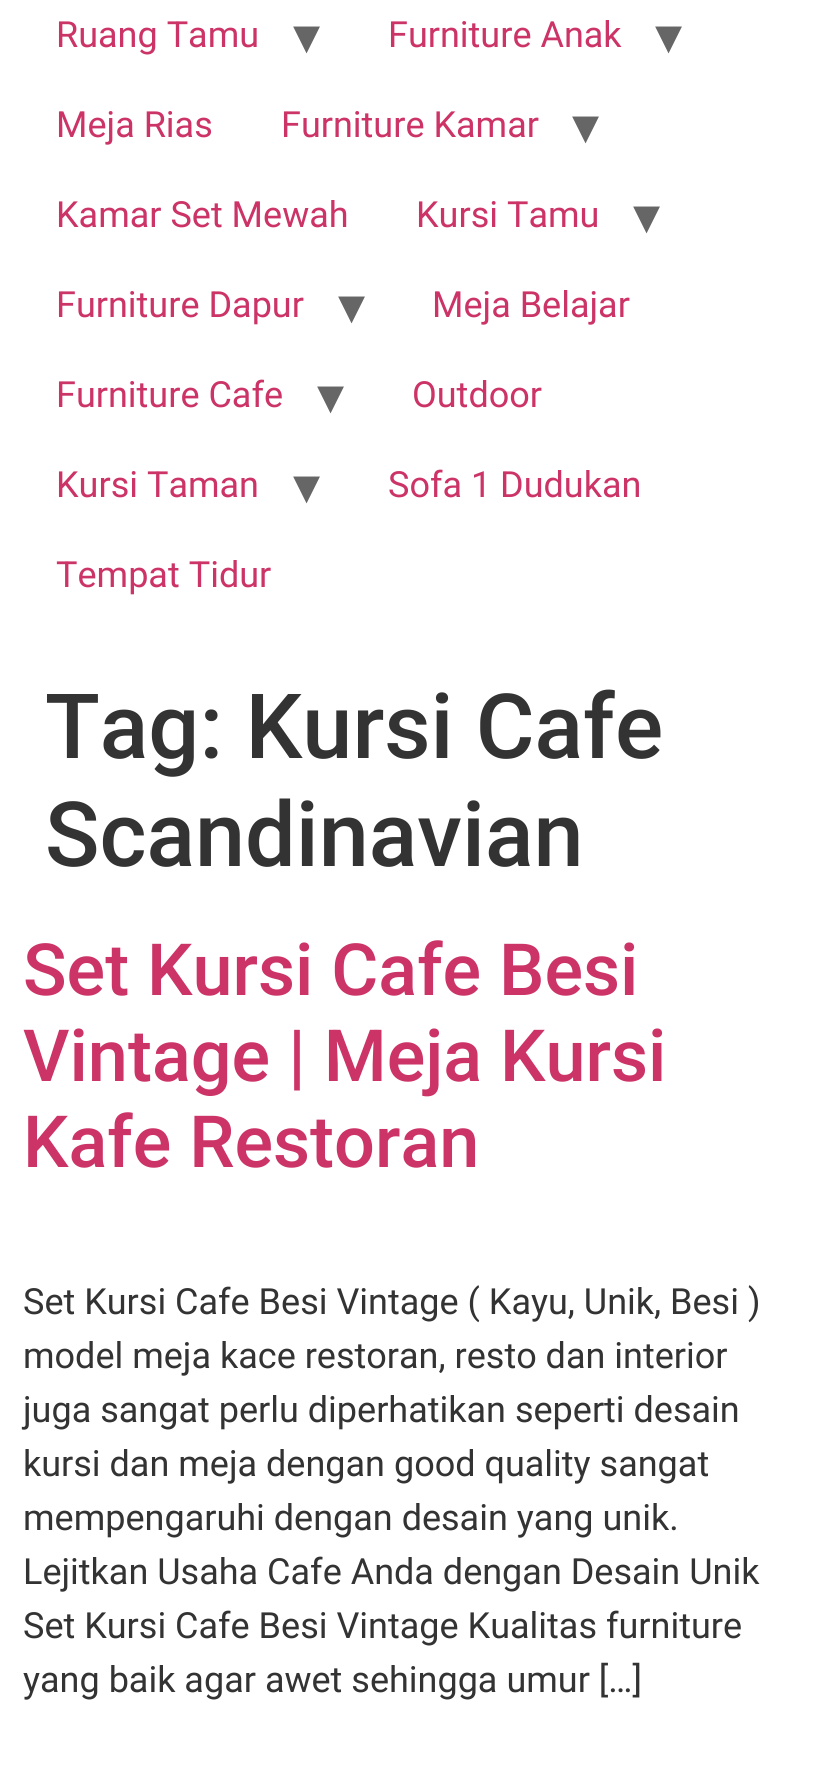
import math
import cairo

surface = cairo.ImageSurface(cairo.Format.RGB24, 821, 1774)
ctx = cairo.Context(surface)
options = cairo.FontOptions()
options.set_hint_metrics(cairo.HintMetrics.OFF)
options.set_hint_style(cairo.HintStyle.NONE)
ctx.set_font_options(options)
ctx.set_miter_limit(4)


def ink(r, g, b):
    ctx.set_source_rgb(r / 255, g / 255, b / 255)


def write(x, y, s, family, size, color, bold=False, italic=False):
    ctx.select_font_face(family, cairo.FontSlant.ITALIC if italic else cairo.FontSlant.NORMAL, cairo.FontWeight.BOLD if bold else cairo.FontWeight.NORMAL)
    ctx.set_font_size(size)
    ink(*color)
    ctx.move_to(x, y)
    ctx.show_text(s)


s1 = dict(family="Roboto", size=36, color=(204, 51, 102))
s2 = dict(family="DejaVu Sans", size=54, color=(102, 102, 102))
s3 = dict(family="Roboto Medium", size=90, color=(51, 51, 51))
s4 = dict(family="Roboto Medium", size=72, color=(204, 51, 102))
s5 = dict(family="Roboto", size=36, color=(51, 51, 51))

ink(255, 255, 255)
ctx.paint()
write(56, 47, "Ruang Tamu", **s1)
write(293, 54, "▾", **s2)
write(388, 47, "Furniture Anak", **s1)
write(655, 54, "▾", **s2)
write(56, 137, "Meja Rias", **s1)
write(281, 137, "Furniture Kamar", **s1)
write(572, 144, "▾", **s2)
write(56, 227, "Kamar Set Mewah", **s1)
write(416, 227, "Kursi Tamu", **s1)
write(633, 234, "▾", **s2)
write(56, 317, "Furniture Dapur", **s1)
write(338, 324, "▾", **s2)
write(432, 317, "Meja Belajar", **s1)
write(56, 407, "Furniture Cafe", **s1)
write(317, 414, "▾", **s2)
write(412, 407, "Outdoor", **s1)
write(56, 497, "Kursi Taman", **s1)
write(293, 504, "▾", **s2)
write(388, 497, "Sofa 1 Dudukan", **s1)
write(56, 587, "Tempat Tidur", **s1)
write(45, 758, "Tag: Kursi Cafe", **s3)
write(45, 866, "Scandinavian", **s3)
write(23, 995, "Set Kursi Cafe Besi", **s4)
write(23, 1081, "Vintage | Meja Kursi", **s4)
write(23, 1167, "Kafe Restoran", **s4)
write(23, 1314, "Set Kursi Cafe Besi Vintage ( Kayu, Unik, Besi )", **s5)
write(23, 1368, "model meja kace restoran, resto dan interior", **s5)
write(23, 1422, "juga sangat perlu diperhatikan seperti desain", **s5)
write(23, 1476, "kursi dan meja dengan good quality sangat", **s5)
write(23, 1530, "mempengaruhi dengan desain yang unik.", **s5)
write(23, 1584, "Lejitkan Usaha Cafe Anda dengan Desain Unik", **s5)
write(23, 1638, "Set Kursi Cafe Besi Vintage Kualitas furniture", **s5)
write(23, 1692, "yang baik agar awet sehingga umur […]", **s5)
surface.write_to_png("screenshot.png")
